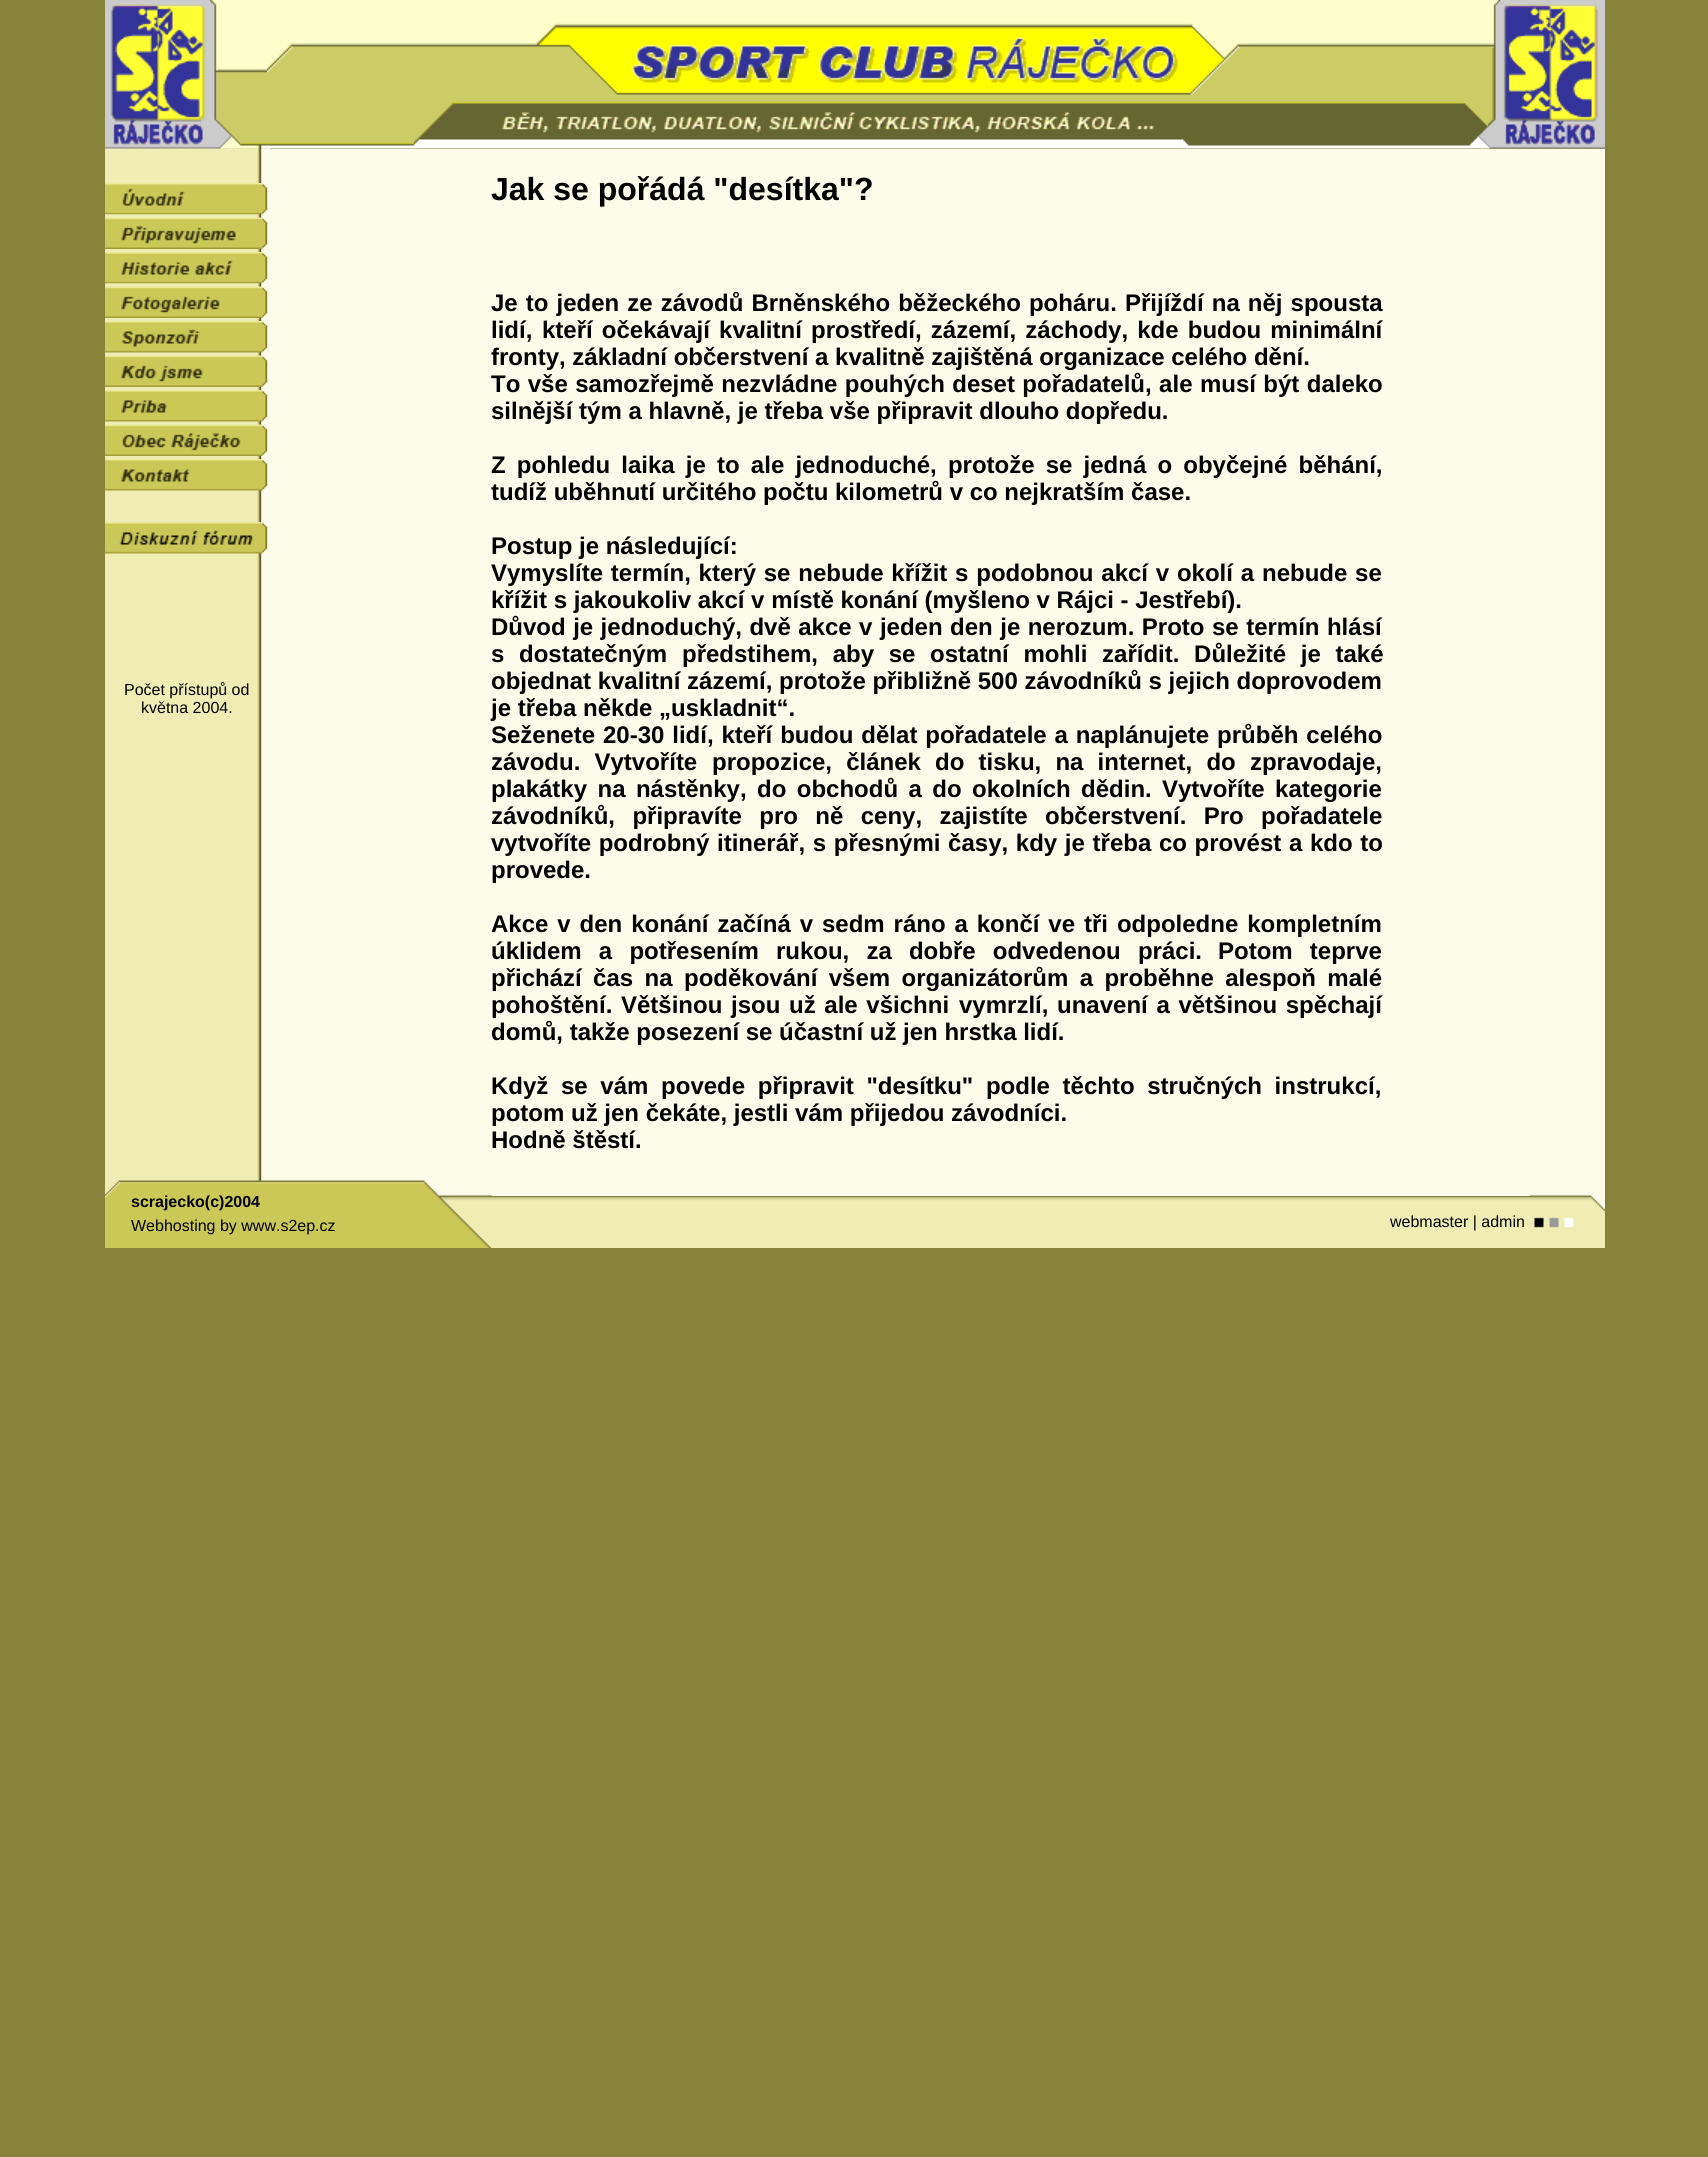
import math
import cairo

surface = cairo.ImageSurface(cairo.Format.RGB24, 1708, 2157)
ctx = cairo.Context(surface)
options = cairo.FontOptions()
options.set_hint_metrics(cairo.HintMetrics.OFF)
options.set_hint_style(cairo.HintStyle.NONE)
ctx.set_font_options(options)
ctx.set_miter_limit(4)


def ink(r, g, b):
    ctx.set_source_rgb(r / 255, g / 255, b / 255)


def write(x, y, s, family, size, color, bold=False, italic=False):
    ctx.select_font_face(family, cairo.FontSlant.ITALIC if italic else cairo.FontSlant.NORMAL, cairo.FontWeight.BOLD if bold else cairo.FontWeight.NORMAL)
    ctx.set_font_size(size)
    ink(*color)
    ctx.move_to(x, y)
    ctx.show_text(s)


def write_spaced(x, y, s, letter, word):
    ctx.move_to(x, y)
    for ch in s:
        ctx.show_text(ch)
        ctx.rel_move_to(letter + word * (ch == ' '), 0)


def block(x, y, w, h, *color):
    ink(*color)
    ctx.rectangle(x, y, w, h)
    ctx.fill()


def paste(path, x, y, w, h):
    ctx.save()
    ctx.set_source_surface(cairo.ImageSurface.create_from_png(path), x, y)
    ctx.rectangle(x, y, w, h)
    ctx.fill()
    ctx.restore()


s1 = dict(family="Liberation Sans", size=16, color=(0, 0, 0))
s2 = dict(family="Liberation Sans", size=32, color=(0, 0, 0), bold=True)
s3 = dict(family="Liberation Sans", size=24, color=(0, 0, 0), bold=True)
s4 = dict(family="Liberation Sans", size=16, color=(0, 0, 0), bold=True)

ink(134, 130, 58)
ctx.paint()
paste("pic2.png", 105, 148, 165, 1031)
paste("pic3.png", 105, 148, 165, 1)
paste("pic1.png", 105, 0, 1500, 149)
paste("pic4.png", 105, 183, 163, 32)
paste("pic5.png", 105, 214, 158, 4)
paste("pic6.png", 105, 217, 163, 32)
paste("pic7.png", 260, 249, 2, 3)
paste("pic8.png", 105, 252, 163, 32)
paste("pic5.png", 105, 283, 158, 4)
paste("pic9.png", 105, 286, 163, 32)
paste("pic10.png", 105, 321, 163, 32)
paste("pic11.png", 105, 355, 163, 32)
paste("pic12.png", 105, 390, 163, 32)
paste("pic13.png", 105, 424, 163, 32)
paste("pic14.png", 105, 459, 163, 32)
paste("pic15.png", 105, 522, 163, 32)
write(124, 695, "Počet přístupů od", **s1)
write(141, 713, "května 2004.", **s1)
block(270, 149, 1335, 1030, 253, 252, 235)
write(491, 200, "Jak se pořádá \"desítka\"?", **s2)
ctx.set_font_size(24)
write_spaced(491, 311, "Je to jeden ze závodů Brněnského běžeckého poháru. Přijíždí na něj spousta", 0, 1.4)
write(491, 338, "lidí,", **s3)
write_spaced(542, 338, "kteří očekávají kvalitní prostředí, zázemí, záchody, kde budou minimální", 0, 2.5)
write(491, 365, "fronty, základní občerstvení a kvalitně zajištěná organizace celého dění.", **s3)
write_spaced(491, 392, "To vše samozřejmě nezvládne pouhých deset pořadatelů, ale musí být daleko", 0, 0.75)
write(491, 419, "silnější tým a hlavně, je třeba vše připravit dlouho dopředu.", **s3)
write_spaced(491, 473, "Z pohledu laika je to ale jednoduché, protože se jedná o obyčejné běhání,", 0, 4.5)
write(491, 500, "tudíž uběhnutí určitého počtu kilometrů v co nejkratším čase.", **s3)
write(491, 554, "Postup je následující:", **s3)
write_spaced(491, 581, "Vymyslíte termín, který se nebude křížit s podobnou akcí v okolí a", 0, 1.1)
write_spaced(1262, 581, "nebude se", 0, 1.1)
write(491, 608, "křížit s jakoukoliv akcí v místě konání (myšleno v Rájci - Jestřebí).", **s3)
write_spaced(491, 635, "Důvod je jednoduchý, dvě akce v jeden den je nerozum. Proto se termín hlásí", 0, 0.8)
write_spaced(491, 662, "s dostatečným", 0, 8)
write_spaced(682, 662, "předstihem, aby se ostatní mohli zařídit. Důležité je také", 0, 8)
write(491, 689, "objednat kvalitní zázemí, protože přibližně 500 závodníků s jejich doprovodem", **s3)
write(491, 716, "je třeba někde „uskladnit“.", **s3)
write_spaced(491, 743, "Seženete 20-30 lidí, kteří budou dělat pořadatele a naplánujete průběh celého", 0, 1.25)
write_spaced(491, 770, "závodu. Vytvoříte", 0, 7.5)
write_spaced(712, 770, "propozice, článek do tisku, na internet, do zpravodaje,", 0, 7.5)
write_spaced(491, 797, "plakátky na nástěnky, do obchodů a do okolních dědin.", 0, 3.75)
write_spaced(1162, 797, "Vytvoříte kategorie", 0, 3.75)
write_spaced(491, 824, "závodníků, připravíte pro ně ceny, zajistíte občerstvení. Pro", 0, 10.75)
write(1261, 824, "pořadatele", **s3)
write_spaced(491, 851, "vytvoříte podrobný itinerář, s přesnými časy, kdy je třeba co provést a kdo to", 0, 1)
write(491, 878, "provede.", **s3)
write_spaced(491, 932, "Akce v den konání začíná v sedm ráno a končí ve tři odpoledne kompletním", 0, 2.25)
write_spaced(491, 959, "úklidem a potřesením rukou, za dobře odvedenou práci.", 0, 10.5)
write_spaced(1218, 959, "Potom teprve", 0, 10.5)
write_spaced(491, 986, "přichází čas na poděkování všem organizátorům a proběhne alespoň malé", 0, 4.75)
write_spaced(491, 1013, "pohoštění. Většinou jsou už ale všichni", 0, 2)
write_spaced(959, 1013, "vymrzlí, unavení a většinou spěchají", 0, 2)
write(491, 1040, "domů, takže posezení se účastní už jen hrstka lidí.", **s3)
write_spaced(491, 1094, "Když se vám povede připravit \"desítku\" podle těchto stručných instrukcí,", 0, 6)
write(491, 1121, "potom už jen čekáte, jestli vám přijedou závodníci.", **s3)
write(491, 1148, "Hodně štěstí.", **s3)
block(492, 1179, 1113, 17, 253, 252, 235)
paste("pic16.png", 105, 1179, 387, 69)
write(131, 1207, "scrajecko(c)2004", **s4)
write(131, 1231, "Webhosting by www.s2ep.cz", **s1)
paste("pic17.png", 492, 1196, 1038, 52)
write(1390, 1227, "webmaster | admin", **s1)
paste("pic18.png", 1530, 1195, 75, 53)
surface.write_to_png("screenshot.png")
